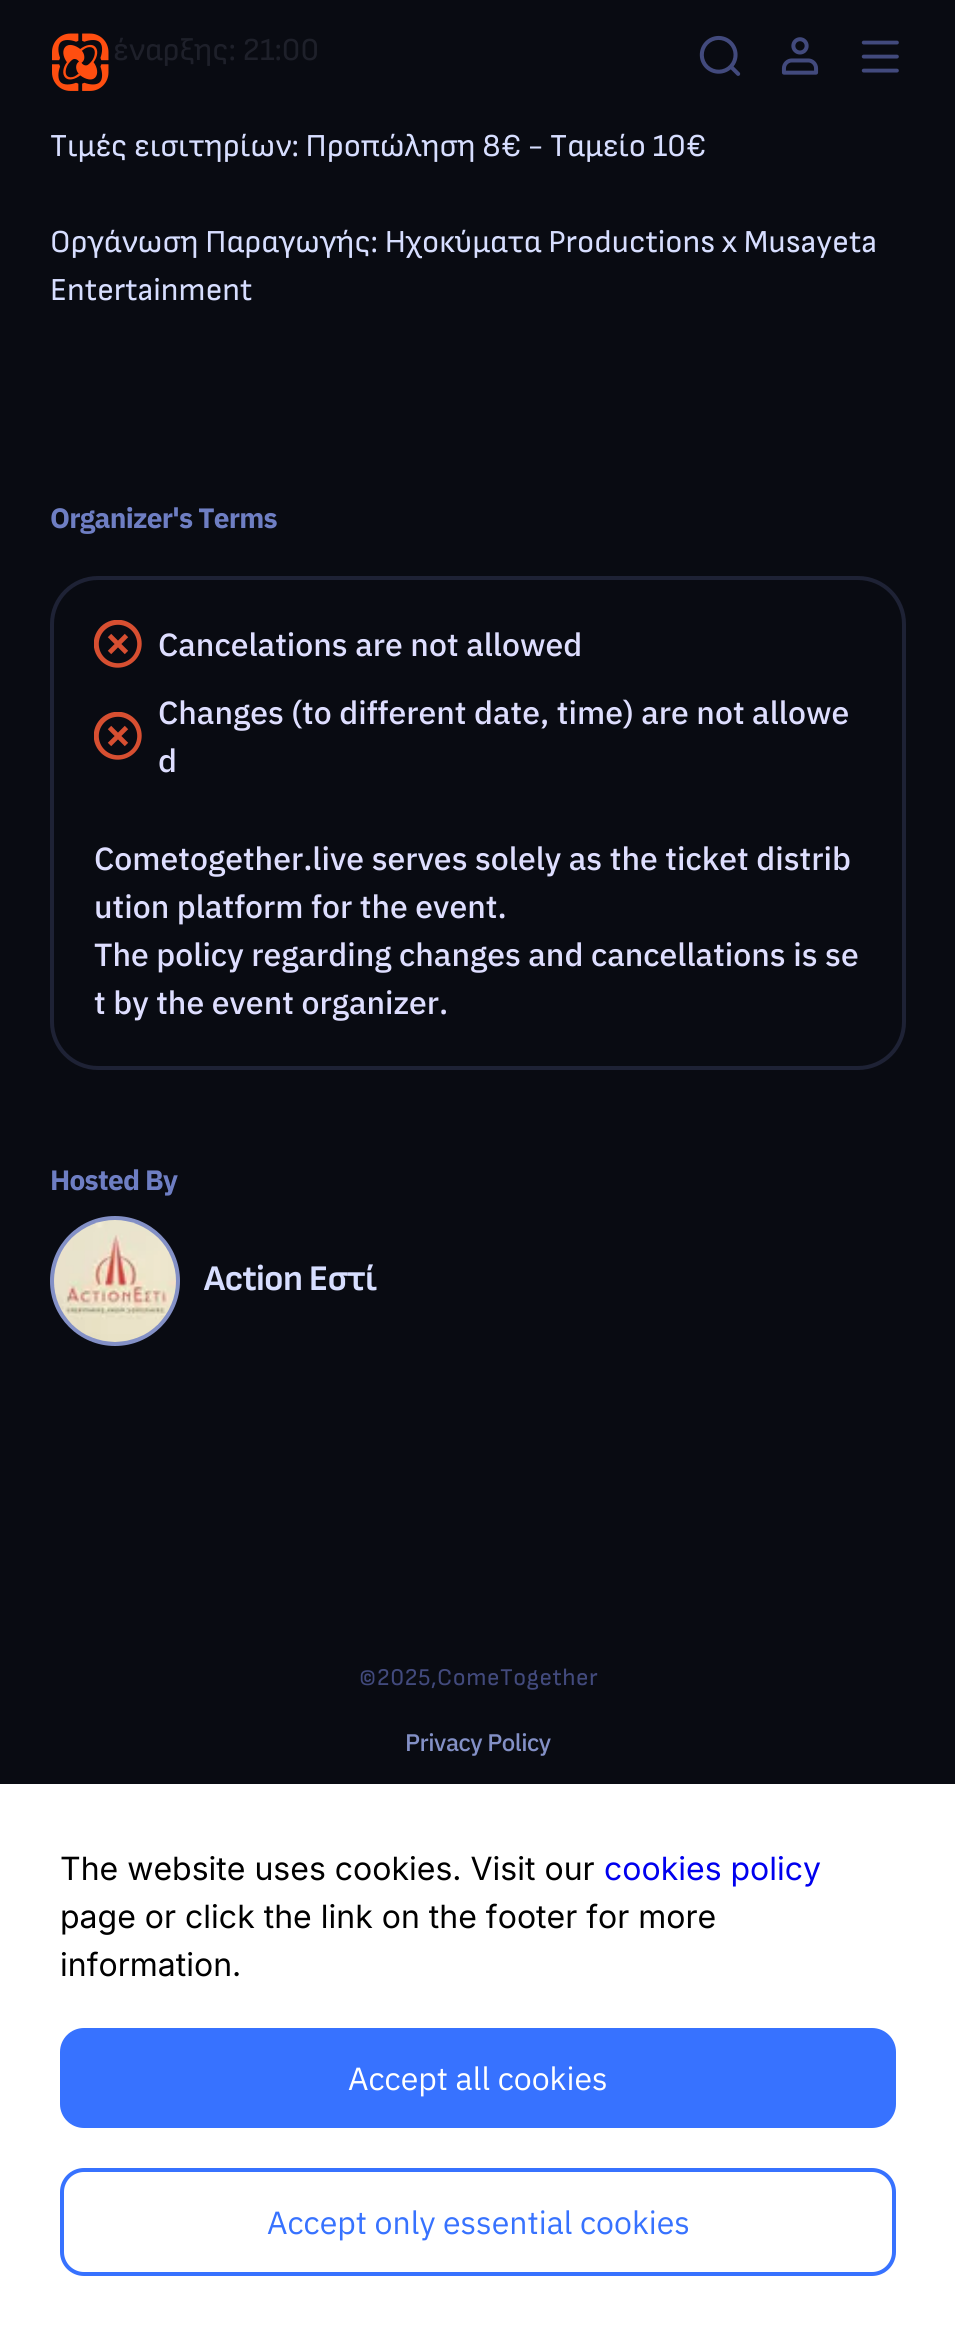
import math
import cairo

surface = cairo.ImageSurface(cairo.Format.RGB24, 955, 2336)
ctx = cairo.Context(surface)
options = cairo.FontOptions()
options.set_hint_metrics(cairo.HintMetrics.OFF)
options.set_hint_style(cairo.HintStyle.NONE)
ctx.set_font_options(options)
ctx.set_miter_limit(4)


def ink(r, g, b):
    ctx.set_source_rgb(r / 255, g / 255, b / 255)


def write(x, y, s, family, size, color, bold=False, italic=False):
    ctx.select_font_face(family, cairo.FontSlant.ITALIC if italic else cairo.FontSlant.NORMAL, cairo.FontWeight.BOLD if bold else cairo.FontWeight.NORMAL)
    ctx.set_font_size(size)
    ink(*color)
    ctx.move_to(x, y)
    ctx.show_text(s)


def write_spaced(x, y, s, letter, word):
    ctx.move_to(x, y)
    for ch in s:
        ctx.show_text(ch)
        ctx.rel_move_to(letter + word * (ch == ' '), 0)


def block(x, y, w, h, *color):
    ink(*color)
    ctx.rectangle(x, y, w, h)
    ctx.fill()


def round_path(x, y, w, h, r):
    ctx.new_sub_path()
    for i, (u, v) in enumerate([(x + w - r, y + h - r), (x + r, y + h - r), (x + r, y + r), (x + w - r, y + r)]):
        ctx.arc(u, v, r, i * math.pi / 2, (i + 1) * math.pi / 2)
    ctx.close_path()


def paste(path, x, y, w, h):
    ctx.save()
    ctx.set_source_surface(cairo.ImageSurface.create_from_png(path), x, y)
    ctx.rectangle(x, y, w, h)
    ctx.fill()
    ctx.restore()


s1 = dict(family="Sofia Sans", size=32, color=(30, 32, 42))
s2 = dict(family="Sofia Sans", size=32, color=(215, 222, 255))
s3 = dict(family="IBM Plex Sans Medium", size=32, color=(222, 222, 255))
s4 = dict(family="Inter", size=32, color=(0, 0, 0))
s5 = dict(family="Inter", size=32, color=(0, 0, 238))
s6 = dict(family="IBM Plex Sans", size=32, color=(255, 255, 255))
s7 = dict(family="IBM Plex Sans", size=32, color=(55, 114, 255))

ink(9, 11, 18)
ctx.paint()
paste("pic1.png", 52, 33, 57, 58)
paste("pic2.png", 699, 35, 42, 41)
paste("pic3.png", 781, 37, 38, 38)
paste("pic4.png", 861, 40, 38, 33)
write(113, 60, "έναρξης: 21:00", **s1)
write(50, 156, "Τιμές εισιτηρίων: Προπώληση 8€ - Ταμείο 10€", **s2)
write(50, 252, "Οργάνωση Παραγωγής: Ηχοκύματα Productions x Musayeta", **s2)
write(50, 300, "Entertainment", **s2)
ctx.select_font_face("IBM Plex Sans", cairo.FontSlant.NORMAL, cairo.FontWeight.BOLD)
ctx.set_font_size(28)
ink(110, 126, 195)
write_spaced(50, 528, "Organizer's Terms", -0.75, 0)
round_path(52, 578, 852, 490, 46)
ink(30, 34, 53)
ctx.set_line_width(4)
ctx.stroke()
paste("pic5.png", 94, 620, 48, 48)
write(158, 656, "Cancelations are not allowed", **s3)
paste("pic5.png", 94, 712, 48, 48)
write(158, 724, "Changes (to different date, time) are not allowe", **s3)
write(158, 772, "d", **s3)
write(94, 870, "Cometogether.live serves solely as the ticket distrib", **s3)
write(94, 918, "ution platform for the event.", **s3)
write(94, 966, "The policy regarding changes and cancellations is se", **s3)
write(94, 1014, "t by the event organizer.", **s3)
ctx.select_font_face("IBM Plex Sans", cairo.FontSlant.NORMAL, cairo.FontWeight.BOLD)
ctx.set_font_size(28)
ink(110, 126, 195)
write_spaced(50, 1190, "Hosted By", -0.75, 0)
ink(131, 144, 198)
ctx.new_path()
ctx.arc(115, 1281, 65, 0, 2 * math.pi)
ctx.fill()
paste("pic6.png", 54, 1220, 122, 122)
ctx.select_font_face("Sofia Sans", cairo.FontSlant.NORMAL, cairo.FontWeight.BOLD)
ctx.set_font_size(36)
ink(215, 222, 255)
write_spaced(204, 1290, "Action Εστί", -0.75, 0)
ctx.select_font_face("Sofia Sans")
ctx.set_font_size(24)
ink(66, 74, 125)
write_spaced(359, 1685, "©2025,ComeTogether", 0.5, 0)
ctx.select_font_face("IBM Plex Sans Medium")
ink(131, 144, 198)
write_spaced(405, 1751, "Privacy Policy", -0.5, 0)
block(0, 1784, 955, 552, 255, 255, 255)
write(60, 1880, "The website uses cookies. Visit our", **s4)
write(604, 1880, "cookies policy", **s5)
write(60, 1928, "page or click the link on the footer for more", **s4)
write(60, 1976, "information.", **s4)
ink(55, 114, 255)
round_path(60, 2028, 836, 100, 24)
ctx.fill()
write(348, 2090, "Accept all cookies", **s6)
round_path(62, 2170, 832, 104, 22)
ink(55, 114, 255)
ctx.stroke()
write(267, 2234, "Accept only essential cookies", **s7)
surface.write_to_png("screenshot.png")
